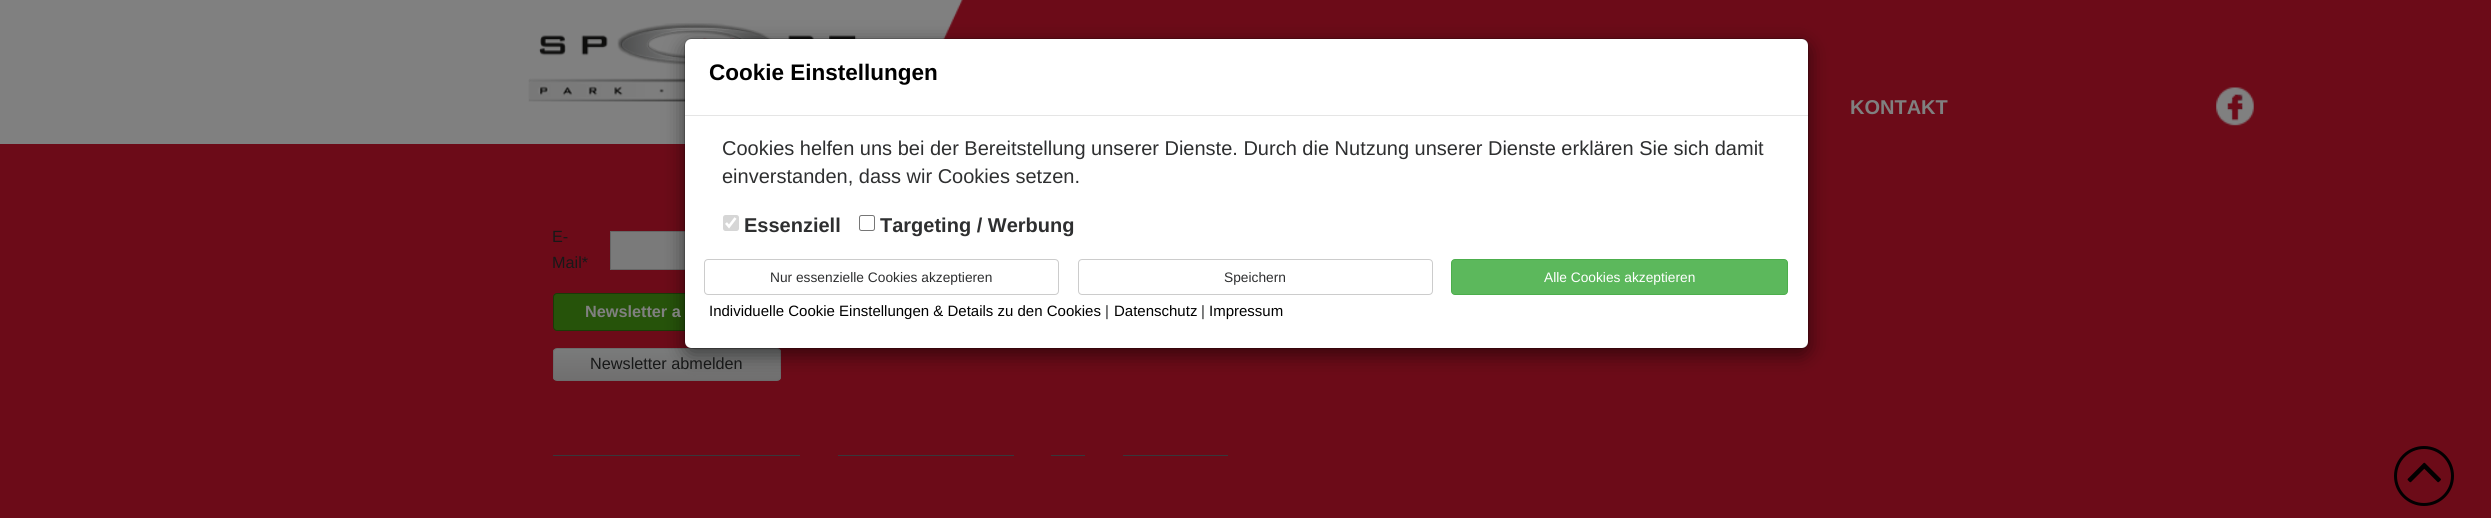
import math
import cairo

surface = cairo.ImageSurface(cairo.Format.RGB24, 2491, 518)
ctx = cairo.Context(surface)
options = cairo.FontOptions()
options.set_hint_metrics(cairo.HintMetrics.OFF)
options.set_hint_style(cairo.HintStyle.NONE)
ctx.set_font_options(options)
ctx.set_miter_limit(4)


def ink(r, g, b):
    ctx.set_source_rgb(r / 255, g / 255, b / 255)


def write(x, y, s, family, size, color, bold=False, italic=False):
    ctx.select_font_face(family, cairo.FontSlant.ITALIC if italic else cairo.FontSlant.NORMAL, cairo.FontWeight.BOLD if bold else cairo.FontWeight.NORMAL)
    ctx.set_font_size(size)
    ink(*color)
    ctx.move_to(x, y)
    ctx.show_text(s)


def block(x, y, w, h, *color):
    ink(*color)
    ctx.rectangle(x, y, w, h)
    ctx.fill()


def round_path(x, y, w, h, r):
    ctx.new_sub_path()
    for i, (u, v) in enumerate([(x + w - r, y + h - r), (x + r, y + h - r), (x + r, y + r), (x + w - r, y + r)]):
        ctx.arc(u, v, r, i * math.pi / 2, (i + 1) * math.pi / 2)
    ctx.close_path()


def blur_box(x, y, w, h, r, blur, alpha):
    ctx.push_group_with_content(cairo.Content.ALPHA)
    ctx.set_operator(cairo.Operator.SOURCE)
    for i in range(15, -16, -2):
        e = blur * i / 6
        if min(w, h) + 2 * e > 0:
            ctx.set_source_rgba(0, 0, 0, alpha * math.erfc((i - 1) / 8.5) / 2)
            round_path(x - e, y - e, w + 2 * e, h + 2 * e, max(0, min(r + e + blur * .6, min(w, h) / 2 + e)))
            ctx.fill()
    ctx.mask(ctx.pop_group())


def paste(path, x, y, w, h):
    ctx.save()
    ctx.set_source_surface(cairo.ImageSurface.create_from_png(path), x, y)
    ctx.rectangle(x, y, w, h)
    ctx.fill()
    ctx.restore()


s1 = dict(family="Liberation Sans", size=22.5, color=(0, 0, 0), bold=True)
s2 = dict(family="Liberation Sans", size=20, color=(46, 47, 48))
s3 = dict(family="Liberation Sans", size=20, color=(46, 47, 48), bold=True)
s4 = dict(family="Liberation Sans", size=13.75, color=(46, 47, 48))
s5 = dict(family="Liberation Sans", size=13.75, color=(255, 255, 255))
s6 = dict(family="Liberation Sans", size=15, color=(0, 0, 0))
s7 = dict(family="Liberation Sans", size=15, color=(46, 47, 48))
s8 = dict(family="Liberation Sans", size=20, color=(128, 128, 128), bold=True)
s9 = dict(family="Liberation Sans", size=16.25, color=(23, 24, 24))
s10 = dict(family="Liberation Sans", size=16.25, color=(128, 128, 128), bold=True)

ink(108, 11, 24)
ctx.paint()
block(0, 0, 885, 144, 128, 128, 128)
paste("pic1.png", 528, 23, 329, 79)
paste("pic2.png", 885, 0, 78, 39)
block(611, 232, 74, 37, 122, 122, 122)
ctx.rectangle(610.5, 231.5, 170, 38)
ink(102, 102, 102)
ctx.set_line_width(1)
ctx.stroke()
ink(38, 83, 10)
round_path(553.5, 293.5, 227, 37, 3.5)
ctx.fill_preserve()
ink(26, 58, 7)
ctx.stroke()
ctx.save()
round_path(553, 348, 228, 33, 4)
ctx.clip()
gradient = cairo.LinearGradient(667, 349, 667, 380)
gradient.add_color_stop_rgba(0, 0.478, 0.482, 0.482, 1)
gradient.add_color_stop_rgba(1, 0.439, 0.435, 0.435, 1)
ctx.set_source(gradient)
ctx.rectangle(553, 349, 228, 31)
ctx.fill()
ctx.restore()
round_path(553.5, 348.5, 227, 32, 3.5)
ink(108, 109, 109)
ctx.stroke()
ink(0, 0, 0)
blur_box(684, 44, 1125, 311, 8, 9.5, 0.5)
ink(255, 255, 255)
round_path(685, 39, 1123, 309, 6)
ctx.fill()
round_path(684.5, 38.5, 1124, 310, 7.5)
ctx.set_source_rgba(0, 0, 0, 0.2)
ctx.stroke()
block(685, 115, 1123, 1, 229, 229, 229)
write(709, 80, "Cookie Einstellungen", **s1)
write(722, 155, "Cookies helfen uns bei der Bereitstellung unserer Dienste. Durch die Nutzung unserer Dienste erklären Sie sich damit", **s2)
write(722, 183, "einverstanden, dass wir Cookies setzen.", **s2)
ink(214, 214, 214)
round_path(723, 215, 16, 16, 2.5)
ctx.fill()
ctx.new_path()
ctx.move_to(726, 223)
ctx.line_to(729, 226.5)
ctx.line_to(735.5, 218)
ink(255, 255, 255)
ctx.set_line_width(2.6)
ctx.stroke()
write(744, 232, "Essenziell", **s3)
round_path(859.5, 215.5, 15, 15, 2)
ink(118, 118, 118)
ctx.set_line_width(1)
ctx.stroke()
write(880, 232, "Targeting / Werbung", **s3)
round_path(704.5, 259.5, 354, 35, 3.5)
ink(204, 204, 204)
ctx.stroke()
write(770, 282, "Nur essenzielle Cookies akzeptieren", **s4)
round_path(1078.5, 259.5, 354, 35, 3.5)
ink(204, 204, 204)
ctx.stroke()
write(1224, 282, "Speichern", **s4)
ink(92, 184, 92)
round_path(1451.5, 259.5, 336, 35, 3.5)
ctx.fill_preserve()
ink(76, 174, 76)
ctx.stroke()
write(1544, 282, "Alle Cookies akzeptieren", **s5)
write(709, 316, "Individuelle Cookie Einstellungen & Details zu den Cookies", **s6)
write(1105, 316, "|", **s7)
write(1114, 316, "Datenschutz", **s6)
write(1201, 316, "|", **s7)
write(1209, 316, "Impressum", **s6)
write(1850, 114, "KONTAKT", **s8)
paste("pic3.png", 2216, 87, 38, 39)
write(552, 242, "E-", **s9)
write(552, 268, "Mail*", **s9)
write(585, 317, "Newsletter a", **s10)
write(590, 369, "Newsletter abmelden", **s9)
block(553, 455, 247, 1, 55, 56, 59)
block(838, 455, 176, 1, 55, 56, 59)
block(1051, 455, 34, 1, 55, 56, 59)
block(1123, 455, 105, 1, 55, 56, 59)
ctx.new_path()
ctx.arc(2424, 476, 28.5, 0, 2 * math.pi)
ink(2, 0, 1)
ctx.set_line_width(3)
ctx.stroke()
paste("pic4.png", 2407, 462, 34, 21)
surface.write_to_png("screenshot.png")
